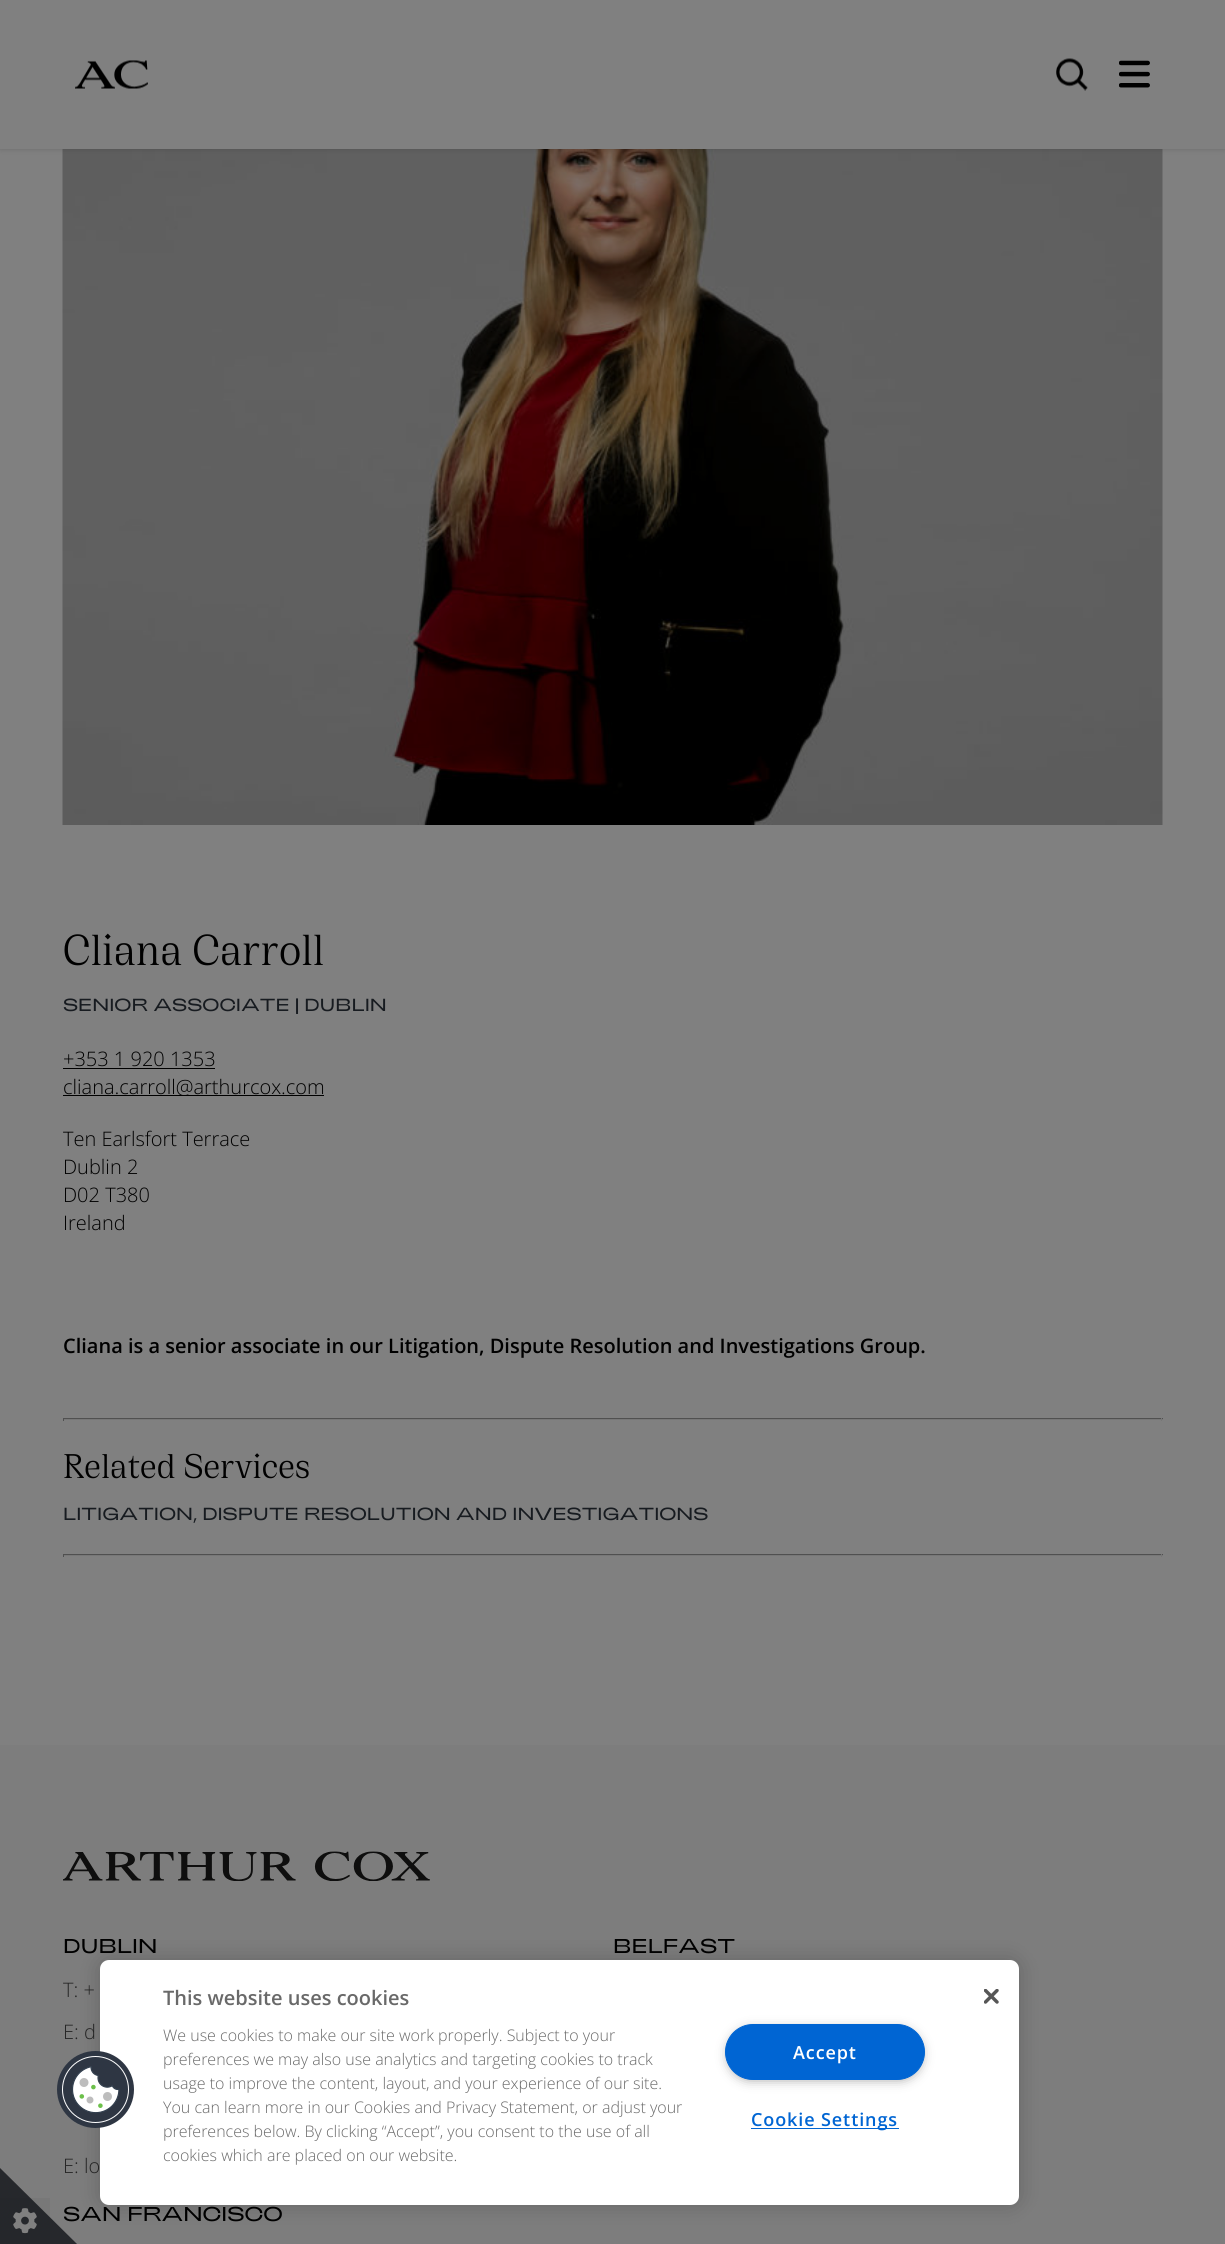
import math
import cairo

surface = cairo.ImageSurface(cairo.Format.RGB24, 1225, 2244)
ctx = cairo.Context(surface)
options = cairo.FontOptions()
options.set_hint_metrics(cairo.HintMetrics.OFF)
options.set_hint_style(cairo.HintStyle.NONE)
ctx.set_font_options(options)
ctx.set_miter_limit(4)


def ink(r, g, b):
    ctx.set_source_rgb(r / 255, g / 255, b / 255)


def write(x, y, s, family, size, color, bold=False, italic=False):
    ctx.select_font_face(family, cairo.FontSlant.ITALIC if italic else cairo.FontSlant.NORMAL, cairo.FontWeight.BOLD if bold else cairo.FontWeight.NORMAL)
    ctx.set_font_size(size)
    ink(*color)
    ctx.move_to(x, y)
    ctx.show_text(s)


def write_spaced(x, y, s, letter, word):
    ctx.move_to(x, y)
    for ch in s:
        ctx.show_text(ch)
        ctx.rel_move_to(letter + word * (ch == ' '), 0)


def block(x, y, w, h, *color):
    ink(*color)
    ctx.rectangle(x, y, w, h)
    ctx.fill()


def round_path(x, y, w, h, r):
    ctx.new_sub_path()
    for i, (u, v) in enumerate([(x + w - r, y + h - r), (x + r, y + h - r), (x + r, y + r), (x + w - r, y + r)]):
        ctx.arc(u, v, r, i * math.pi / 2, (i + 1) * math.pi / 2)
    ctx.close_path()


def blur_box(x, y, w, h, r, blur, alpha):
    ctx.push_group_with_content(cairo.Content.ALPHA)
    ctx.set_operator(cairo.Operator.SOURCE)
    for i in range(15, -16, -2):
        e = blur * i / 6
        if min(w, h) + 2 * e > 0:
            ctx.set_source_rgba(0, 0, 0, alpha * math.erfc((i - 1) / 8.5) / 2)
            round_path(x - e, y - e, w + 2 * e, h + 2 * e, max(0, min(r + e + blur * .6, min(w, h) / 2 + e)))
            ctx.fill()
    ctx.mask(ctx.pop_group())


def paste(path, x, y, w, h):
    ctx.save()
    ctx.set_source_surface(cairo.ImageSurface.create_from_png(path), x, y)
    ctx.rectangle(x, y, w, h)
    ctx.fill()
    ctx.restore()


s1 = dict(family="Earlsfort", size=47.5, color=(0, 0, 0))
s2 = dict(family="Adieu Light", size=17.5, color=(23, 27, 32))
s3 = dict(family="Open Sans Light", size=20, color=(0, 0, 0))
s4 = dict(family="Open Sans SemiBold", size=20, color=(0, 0, 0))
s5 = dict(family="Earlsfort", size=37.5, color=(0, 0, 0))
s6 = dict(family="Adieu Light", size=20, color=(0, 0, 0))
s7 = dict(family="Open Sans Light", size=20, color=(38, 38, 38))
s8 = dict(family="Open Sans SemiBold", size=20, color=(105, 105, 105))
s9 = dict(family="Open Sans Light", size=16, color=(105, 105, 105))

ink(128, 128, 128)
ctx.paint()
paste("pic4.png", 62, 149, 1101, 676)
ink(0, 0, 0)
blur_box(0, 0, 1225, 149, 0, 3, 0.15)
block(0, 0, 1225, 149, 128, 128, 128)
paste("pic1.png", 75, 60, 73, 29)
paste("pic2.png", 1056, 58, 32, 33)
paste("pic3.png", 1119, 60, 31, 28)
write(63, 965, "Cliana Carroll", **s1)
write(63, 1011, "SENIOR ASSOCIATE | DUBLIN", **s2)
write(63, 1066, "+353 1 920 1353", **s3)
block(63, 1068, 152, 1, 0, 0, 0)
block(63, 1095, 261, 1, 0, 0, 0)
write(63, 1094, "cliana.carroll@arthurcox.com", **s3)
write(63, 1146, "Ten Earlsfort Terrace", **s3)
write(63, 1174, "Dublin 2", **s3)
write(63, 1202, "D02 T380", **s3)
write(63, 1230, "Ireland", **s3)
write(63, 1353, "Cliana is a senior associate in our Litigation, Dispute Resolution and Investigations Group.", **s4)
block(63, 1418, 1100, 1, 80, 80, 80)
block(1161, 1418, 1, 3, 119, 119, 119)
block(63, 1419, 1100, 1, 119, 119, 119)
block(63, 1418, 1, 3, 80, 80, 80)
write(63, 1478, "Related Services", **s5)
write(63, 1520, "LITIGATION, DISPUTE RESOLUTION AND INVESTIGATIONS", **s2)
block(63, 1554, 1100, 1, 80, 80, 80)
block(1161, 1554, 1, 3, 119, 119, 119)
block(63, 1555, 1100, 1, 119, 119, 119)
block(63, 1554, 1, 3, 80, 80, 80)
block(0, 1745, 1225, 499, 125, 125, 125)
paste("pic5.png", 63, 1851, 367, 30)
write(63, 1953, "DUBLIN", **s6)
write(63, 1997, "T: +", **s7)
write(63, 2039, "E: d", **s7)
write(613, 1953, "BELFAST", **s6)
write(63, 2173, "E: lo", **s7)
write(63, 2221, "SAN FRANCISCO", **s6)
block(0, 2198, 50, 46, 120, 120, 120)
ctx.set_source_rgba(0.067, 0.078, 0.094, 0.8)
ctx.new_path()
ctx.move_to(78, 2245)
ctx.line_to(0, 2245)
ctx.line_to(0, 2168)
ctx.close_path()
ctx.fill()
ink(0, 0, 0)
blur_box(100, 1960, 919, 245, 9, 11, 0.2)
ink(255, 255, 255)
round_path(100, 1960, 919, 245, 9)
ctx.fill()
paste("pic6.png", 57, 2051, 77, 77)
write(163, 2005, "This website uses cookies", **s8)
write(163, 2041, "We use cookies to make our site work properly. Subject to your", **s9)
write(163, 2065, "preferences we may also use analytics and targeting cookies to track", **s9)
write(163, 2089, "usage to improve the content, layout, and your experience of our site.", **s9)
write(163, 2113, "You can learn more in our Cookies and Privacy Statement, or adjust your", **s9)
write(163, 2137, "preferences below. By clicking “Accept”, you consent to the use of all", **s9)
write(163, 2161, "cookies which are placed on our website.", **s9)
ink(153, 153, 153)
blur_box(729, 2030, 192, 49, 24.5, 6, 1)
ink(0, 101, 211)
round_path(725.5, 2024.5, 199, 55, 27.5)
ctx.fill_preserve()
ctx.set_line_width(1)
ctx.stroke()
ctx.select_font_face("Open Sans SemiBold")
ctx.set_font_size(18)
ink(255, 255, 255)
write_spaced(793, 2059, "Accept", 0.9, 0)
block(751, 2128, 148, 1, 0, 101, 211)
write_spaced(751, 2126, "Cookie Settings", 0.9, 0)
paste("pic7.png", 984, 1989, 15, 15)
paste("pic8.png", 13, 2208, 24, 26)
surface.write_to_png("screenshot.png")
